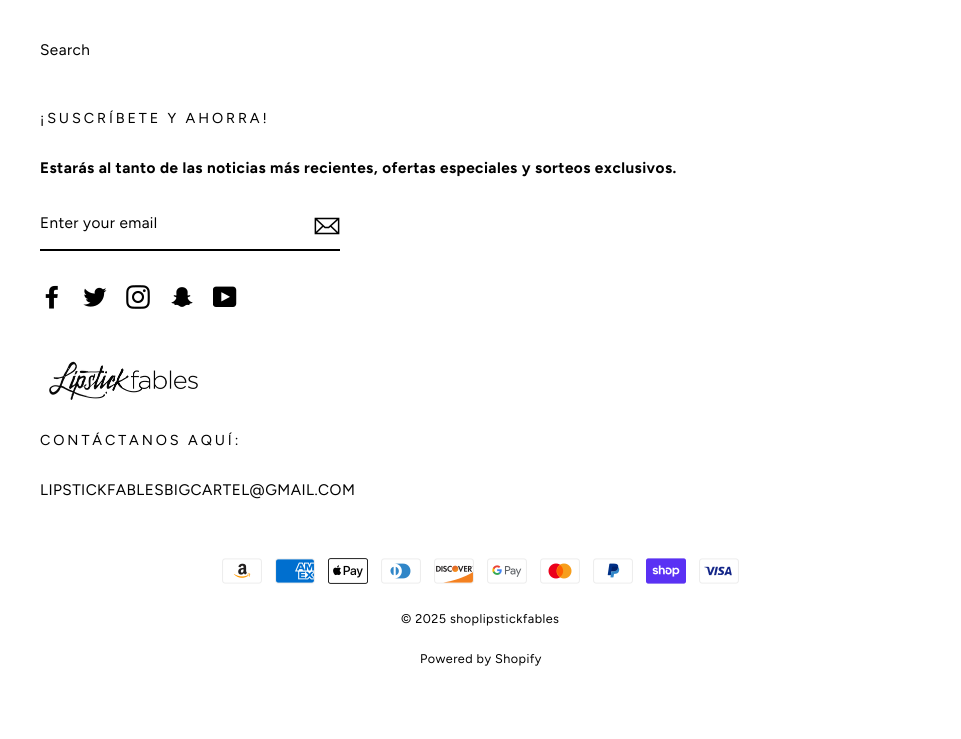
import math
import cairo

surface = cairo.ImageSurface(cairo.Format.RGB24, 961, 739)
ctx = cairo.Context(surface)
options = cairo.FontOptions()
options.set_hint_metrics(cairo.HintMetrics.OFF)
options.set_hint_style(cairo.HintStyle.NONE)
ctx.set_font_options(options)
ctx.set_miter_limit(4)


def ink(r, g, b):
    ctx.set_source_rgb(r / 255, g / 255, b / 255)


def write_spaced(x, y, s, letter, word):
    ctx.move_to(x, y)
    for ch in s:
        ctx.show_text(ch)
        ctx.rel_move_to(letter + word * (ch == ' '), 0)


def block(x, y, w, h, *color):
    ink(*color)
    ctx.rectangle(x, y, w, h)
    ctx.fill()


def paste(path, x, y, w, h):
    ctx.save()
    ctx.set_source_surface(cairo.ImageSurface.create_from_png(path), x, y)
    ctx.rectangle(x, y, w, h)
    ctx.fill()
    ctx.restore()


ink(255, 255, 255)
ctx.paint()
ctx.select_font_face("Figtree")
ctx.set_font_size(15.3)
ink(0, 0, 0)
write_spaced(40, 55, "Search", 0.45, 0)
ctx.set_font_size(14.4)
write_spaced(40, 123, "¡SUSCRÍBETE Y AHORRA!", 2.9, 0)
ctx.select_font_face("Figtree", cairo.FontSlant.NORMAL, cairo.FontWeight.BOLD)
ctx.set_font_size(15.3)
write_spaced(40, 173, "Estarás al tanto de las noticias más recientes, ofertas especiales y sorteos exclusivos.", 0.45, 0)
block(40, 249, 300, 2, 0, 0, 0)
ctx.select_font_face("Figtree")
write_spaced(40, 228, "Enter your email", 0.4, 0)
paste("pic1.png", 314, 217, 26, 18)
paste("pic2.png", 45, 285, 13, 24)
paste("pic3.png", 83, 287, 24, 20)
paste("pic4.png", 126, 285, 24, 24)
paste("pic5.png", 171, 287, 22, 20)
paste("pic6.png", 213, 286, 24, 21)
paste("pic7.png", 49, 361, 149, 39)
ctx.set_font_size(14.4)
write_spaced(40, 445, "CONTÁCTANOS AQUÍ:", 2.9, 0)
ctx.set_font_size(15.3)
write_spaced(40, 495, "LIPSTICKFABLESBIGCARTEL@GMAIL.COM", 0.45, 0)
paste("pic8.png", 222, 558, 40, 26)
paste("pic9.png", 275, 558, 40, 26)
paste("pic10.png", 328, 558, 40, 26)
paste("pic11.png", 381, 558, 40, 26)
paste("pic12.png", 434, 558, 40, 26)
paste("pic13.png", 487, 558, 40, 26)
paste("pic14.png", 540, 558, 40, 26)
paste("pic15.png", 593, 558, 40, 26)
paste("pic16.png", 646, 558, 40, 26)
paste("pic17.png", 699, 558, 40, 26)
ctx.set_font_size(12.6)
write_spaced(401, 623, "© 2025 shoplipstickfables", 0.45, 0)
write_spaced(420, 663, "Powered by Shopify", 0.45, 0)
surface.write_to_png("screenshot.png")
